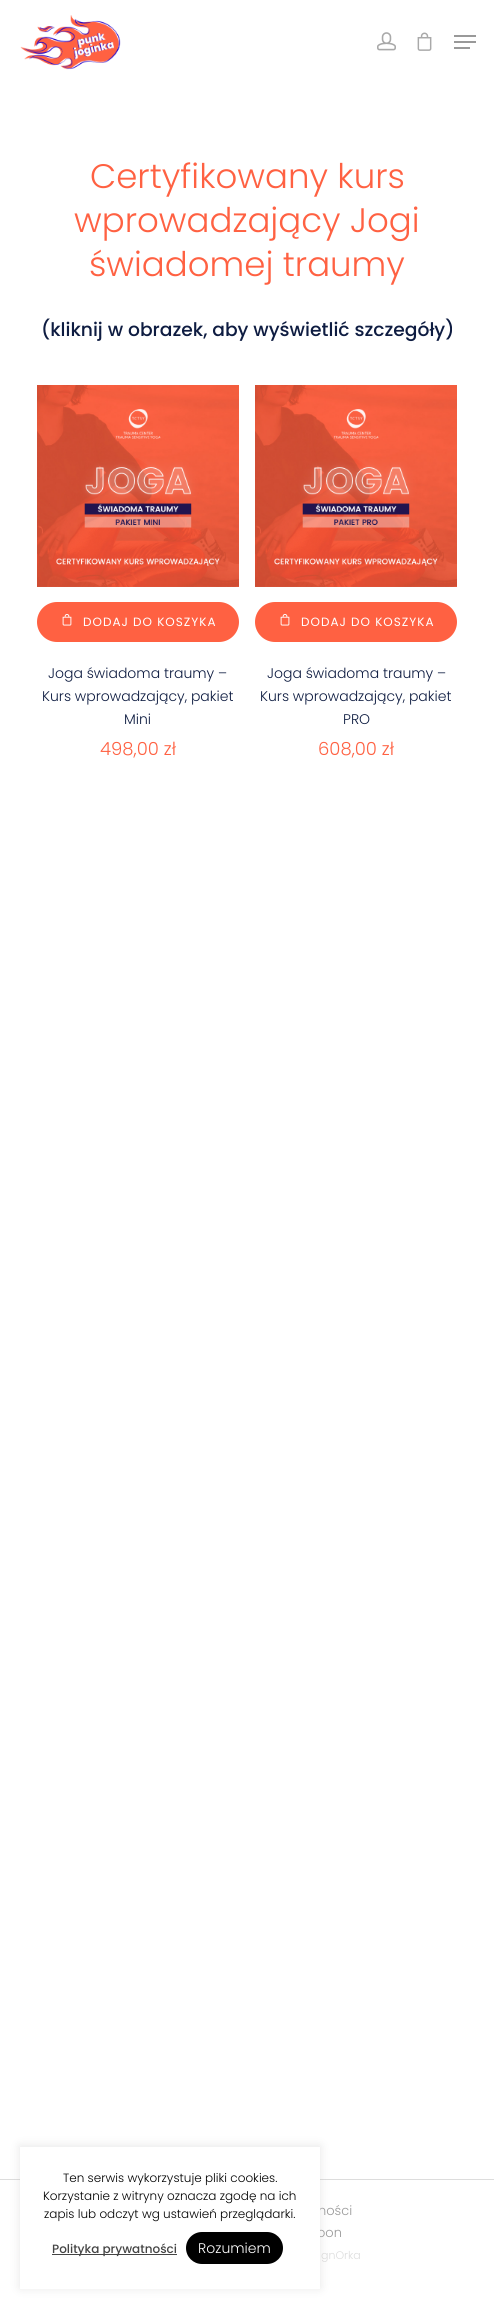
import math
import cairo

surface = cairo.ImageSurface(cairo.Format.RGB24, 494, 2309)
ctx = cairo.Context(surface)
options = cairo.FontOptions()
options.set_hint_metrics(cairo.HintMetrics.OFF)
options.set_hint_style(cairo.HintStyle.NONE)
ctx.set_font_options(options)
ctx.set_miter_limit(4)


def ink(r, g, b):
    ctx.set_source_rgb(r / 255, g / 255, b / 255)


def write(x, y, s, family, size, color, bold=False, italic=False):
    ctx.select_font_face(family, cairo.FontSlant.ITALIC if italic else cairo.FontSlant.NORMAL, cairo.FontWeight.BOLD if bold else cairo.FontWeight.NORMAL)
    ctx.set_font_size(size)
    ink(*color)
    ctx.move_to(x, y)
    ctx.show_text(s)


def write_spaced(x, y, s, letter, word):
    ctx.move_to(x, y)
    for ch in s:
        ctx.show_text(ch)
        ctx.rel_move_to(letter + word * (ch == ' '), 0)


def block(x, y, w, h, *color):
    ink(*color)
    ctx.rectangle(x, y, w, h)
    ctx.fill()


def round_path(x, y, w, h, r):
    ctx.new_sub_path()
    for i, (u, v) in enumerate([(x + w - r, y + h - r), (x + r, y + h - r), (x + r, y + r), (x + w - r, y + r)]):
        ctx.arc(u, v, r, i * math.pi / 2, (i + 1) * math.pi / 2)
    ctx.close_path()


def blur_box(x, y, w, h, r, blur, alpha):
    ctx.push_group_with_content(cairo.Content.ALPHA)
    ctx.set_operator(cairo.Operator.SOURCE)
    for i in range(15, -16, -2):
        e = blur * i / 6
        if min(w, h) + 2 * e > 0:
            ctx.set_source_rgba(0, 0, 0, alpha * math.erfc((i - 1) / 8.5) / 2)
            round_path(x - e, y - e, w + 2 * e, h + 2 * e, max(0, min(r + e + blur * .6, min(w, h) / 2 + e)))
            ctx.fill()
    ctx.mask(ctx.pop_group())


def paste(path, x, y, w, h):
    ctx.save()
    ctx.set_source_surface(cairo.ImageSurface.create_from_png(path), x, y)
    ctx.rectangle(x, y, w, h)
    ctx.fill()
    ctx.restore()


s1 = dict(family="Poppins Light", size=34, color=(255, 97, 66))
s2 = dict(family="Poppins Medium", size=18.7, color=(14, 28, 65))
s3 = dict(family="Poppins Light", size=14, color=(14, 28, 65))
s4 = dict(family="Poppins Light", size=18, color=(255, 97, 66))
s5 = dict(family="Poppins Light", size=13, color=(153, 153, 153))
s6 = dict(family="Poppins Light", size=11, color=(221, 221, 221))
s7 = dict(family="Poppins Light", size=12, color=(0, 0, 0))
s8 = dict(family="Poppins Medium", size=12, color=(68, 68, 68))
s9 = dict(family="Poppins Light", size=14, color=(255, 255, 255))

ink(255, 255, 255)
ctx.paint()
paste("pic1.png", 20, 15, 101, 55)
paste("pic2.png", 377, 32, 19, 19)
paste("pic3.png", 417, 32, 15, 19)
block(454, 35, 22, 2, 153, 153, 153)
block(454, 47, 16, 2, 153, 153, 153)
block(454, 41, 22, 2, 153, 153, 153)
write(90, 188, "Certyfikowany kurs", **s1)
write(74, 232, "wprowadzający Jogi", **s1)
write(89, 276, "świadomej traumy", **s1)
write(41, 336, "(kliknij w obrazek, aby wyświetlić szczegóły)", **s2)
paste("pic4.png", 37, 385, 202, 202)
ink(255, 97, 66)
round_path(37, 602, 202, 40, 20)
ctx.fill()
paste("pic5.png", 62, 614, 10, 12)
ctx.select_font_face("Poppins")
ctx.set_font_size(12)
ink(255, 255, 255)
write_spaced(83, 626, "DODAJ DO KOSZYKA", 1, 0)
write(48, 678, "Joga świadoma traumy –", **s3)
write(42, 701, "Kurs wprowadzający, pakiet", **s3)
write(124, 724, "Mini", **s3)
write(100, 755, "498,00 zł", **s4)
paste("pic6.png", 255, 385, 202, 202)
round_path(255, 602, 202, 40, 20)
ctx.fill()
paste("pic5.png", 280, 614, 10, 12)
ctx.select_font_face("Poppins")
ctx.set_font_size(12)
ink(255, 255, 255)
write_spaced(301, 626, "DODAJ DO KOSZYKA", 1, 0)
write(267, 678, "Joga świadoma traumy –", **s3)
write(260, 701, "Kurs wprowadzający, pakiet", **s3)
write(343, 724, "PRO", **s3)
write(318, 755, "608,00 zł", **s4)
block(0, 2179, 494, 1, 221, 221, 221)
write(318, 2215, "ności", **s5)
write(317, 2237, "oon", **s5)
write(321, 2259, "gnOrka", **s6)
ink(172, 171, 171)
blur_box(20, 2146, 300, 142, 0, 5, 0.3)
block(20, 2147, 300, 142, 255, 255, 255)
write(63, 2182, "Ten serwis wykorzystuje pliki cookies.", **s7)
write(43, 2200, "Korzystanie z witryny oznacza zgodę na ich", **s7)
write(44, 2218, "zapis lub odczyt wg ustawień przeglądarki.", **s7)
block(52, 2254, 125, 1, 68, 68, 68)
write(52, 2253, "Polityka prywatności", **s8)
ink(0, 0, 0)
round_path(186, 2232, 97, 32, 16)
ctx.fill()
write(198, 2253, "Rozumiem", **s9)
surface.write_to_png("screenshot.png")
